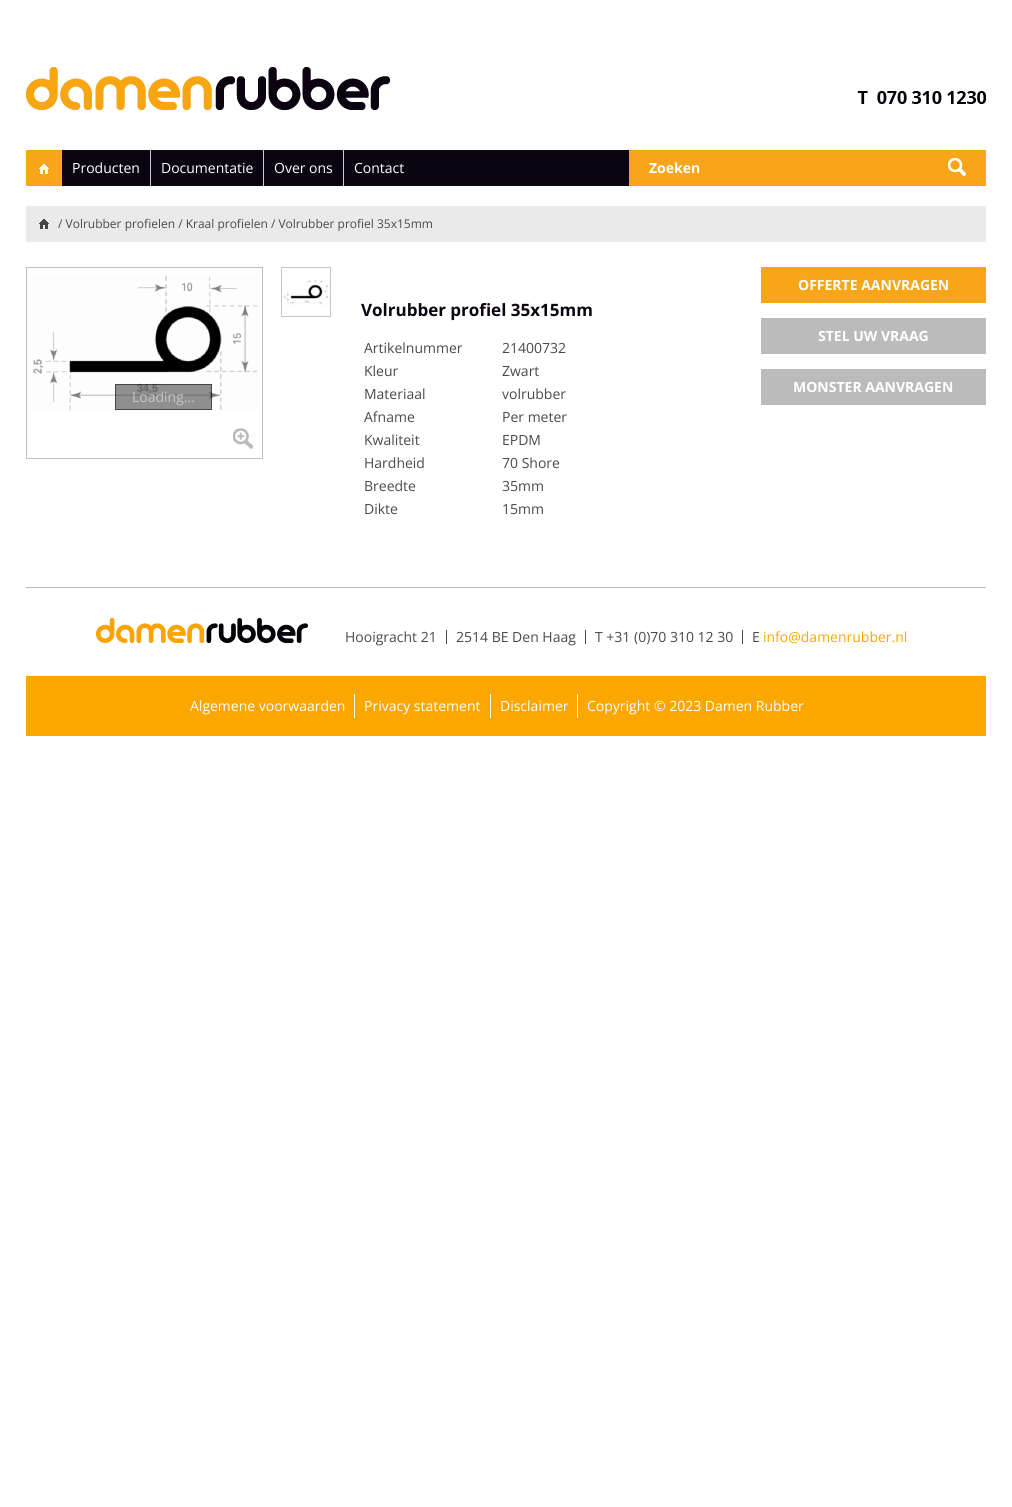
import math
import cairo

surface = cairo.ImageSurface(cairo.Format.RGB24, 1012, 1507)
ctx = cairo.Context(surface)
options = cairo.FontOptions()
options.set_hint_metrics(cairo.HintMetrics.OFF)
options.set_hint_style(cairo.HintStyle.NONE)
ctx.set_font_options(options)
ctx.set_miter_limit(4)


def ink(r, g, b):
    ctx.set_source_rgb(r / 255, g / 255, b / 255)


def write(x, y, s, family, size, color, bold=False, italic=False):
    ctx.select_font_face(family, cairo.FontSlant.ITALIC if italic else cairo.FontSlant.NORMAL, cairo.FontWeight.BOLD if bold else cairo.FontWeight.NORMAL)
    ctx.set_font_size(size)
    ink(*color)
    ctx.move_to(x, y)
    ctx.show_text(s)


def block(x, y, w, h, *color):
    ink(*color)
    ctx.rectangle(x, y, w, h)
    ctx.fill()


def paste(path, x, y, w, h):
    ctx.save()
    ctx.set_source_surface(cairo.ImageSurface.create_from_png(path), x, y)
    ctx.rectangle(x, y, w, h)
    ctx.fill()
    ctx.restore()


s1 = dict(family="Open Sans", size=14, color=(255, 255, 255))
s2 = dict(family="Open Sans", size=14, color=(255, 255, 255), bold=True)
s3 = dict(family="Open Sans", size=12, color=(74, 74, 73))
s4 = dict(family="Open Sans", size=14, color=(197, 197, 197))
s5 = dict(family="Open Sans", size=17, color=(10, 5, 16), bold=True)
s6 = dict(family="Open Sans", size=14, color=(74, 74, 73))
s7 = dict(family="Open Sans", size=14, color=(252, 166, 0))

ink(255, 255, 255)
ctx.paint()
paste("pic1.png", 26, 67, 364, 43)
paste("pic2.png", 857, 91, 129, 13)
block(62, 150, 567, 36, 10, 5, 16)
block(26, 150, 36, 36, 247, 165, 25)
paste("pic3.png", 39, 164, 10, 10)
block(150, 150, 1, 36, 204, 204, 204)
write(72, 173, "Producten", **s1)
write(161, 173, "Documentatie", **s1)
block(263, 150, 1, 36, 204, 204, 204)
write(274, 173, "Over ons", **s1)
block(343, 150, 1, 36, 204, 204, 204)
write(354, 173, "Contact", **s1)
block(629, 150, 357, 36, 247, 165, 25)
write(649, 173, "Zoeken", **s2)
paste("pic4.png", 948, 158, 18, 18)
block(26, 206, 960, 36, 234, 234, 234)
paste("pic5.png", 39, 219, 10, 10)
write(58, 228, "/ Volrubber profielen / Kraal profielen / Volrubber profiel 35x15mm", **s3)
ctx.rectangle(281.5, 267.5, 49, 49)
ink(199, 198, 199)
ctx.set_line_width(1)
ctx.stroke()
paste("pic6.png", 283, 279, 47, 27)
ctx.rectangle(26.5, 267.5, 236, 191)
ink(193, 192, 193)
ctx.stroke()
paste("pic7.png", 233, 428, 20, 21)
paste("pic8.png", 33, 275, 225, 136)
ctx.set_source_rgba(0.133, 0.133, 0.133, 0.5)
ctx.rectangle(115, 384, 97, 26)
ctx.fill()
ctx.rectangle(115.5, 384.5, 96, 25)
ctx.set_source_rgba(0, 0, 0, 0.5)
ctx.stroke()
write(132, 402, "Loading...", **s4)
write(361, 316, "Volrubber profiel 35x15mm", **s5)
write(364, 353, "Artikelnummer", **s6)
write(502, 353, "21400732", **s6)
write(364, 376, "Kleur", **s6)
write(502, 376, "Zwart", **s6)
write(364, 399, "Materiaal", **s6)
write(502, 399, "volrubber", **s6)
write(364, 422, "Afname", **s6)
write(502, 422, "Per meter", **s6)
write(364, 445, "Kwaliteit", **s6)
write(502, 445, "EPDM", **s6)
write(364, 468, "Hardheid", **s6)
write(502, 468, "70 Shore", **s6)
write(364, 491, "Breedte", **s6)
write(502, 491, "35mm", **s6)
write(364, 514, "Dikte", **s6)
write(502, 514, "15mm", **s6)
block(761, 267, 225, 36, 247, 165, 25)
write(798, 290, "OFFERTE AANVRAGEN", **s2)
block(761, 318, 225, 36, 187, 187, 187)
write(818, 341, "STEL UW VRAAG", **s2)
block(761, 369, 225, 36, 187, 187, 187)
write(793, 392, "MONSTER AANVRAGEN", **s2)
block(26, 587, 960, 1, 186, 185, 185)
paste("pic9.png", 96, 618, 212, 25)
block(446, 630, 1, 14, 74, 74, 73)
write(345, 642, "Hooigracht 21", **s6)
block(585, 630, 1, 14, 74, 74, 73)
write(456, 642, "2514 BE Den Haag", **s6)
block(742, 630, 1, 14, 74, 74, 73)
write(595, 642, "T +31 (0)70 310 12 30", **s6)
write(752, 642, "E", **s6)
write(763, 642, "info@damenrubber.nl", **s7)
block(26, 676, 960, 60, 252, 166, 0)
block(354, 694, 1, 24, 255, 255, 255)
write(190, 711, "Algemene voorwaarden", **s1)
block(490, 694, 1, 24, 255, 255, 255)
write(364, 711, "Privacy statement", **s1)
block(577, 694, 1, 24, 255, 255, 255)
write(500, 711, "Disclaimer", **s1)
write(587, 711, "Copyright © 2023 Damen Rubber", **s1)
surface.write_to_png("screenshot.png")
